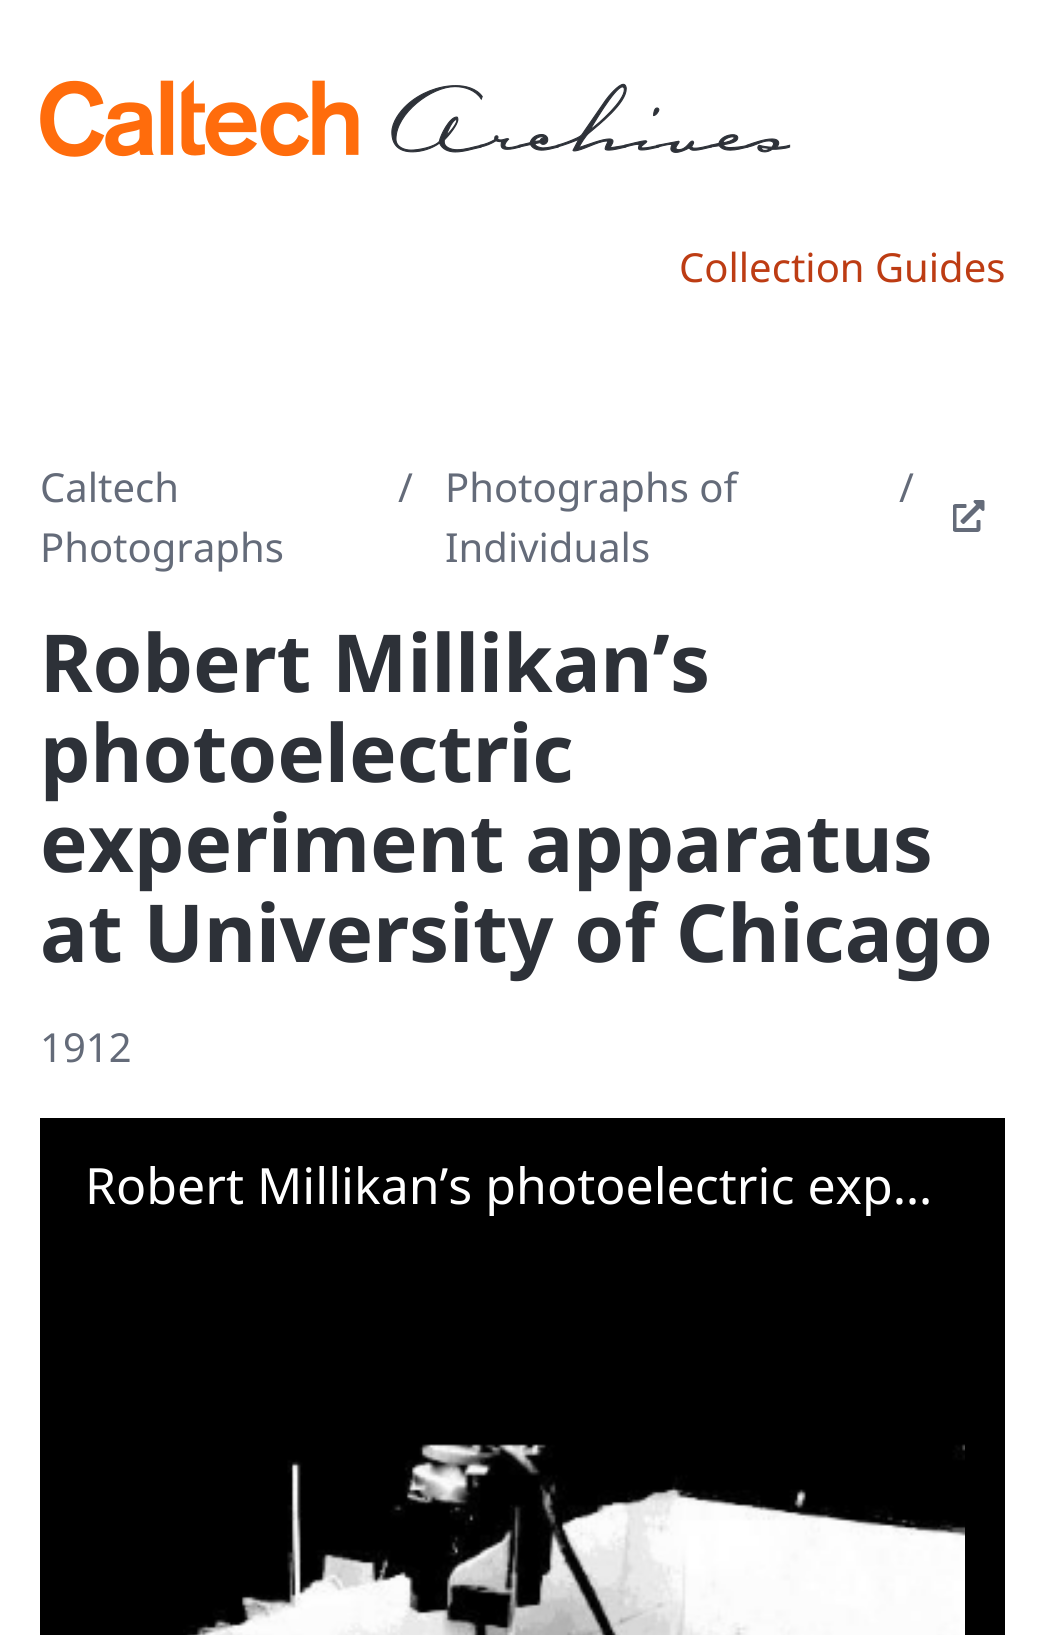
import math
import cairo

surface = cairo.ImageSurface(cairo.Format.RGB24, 1044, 1635)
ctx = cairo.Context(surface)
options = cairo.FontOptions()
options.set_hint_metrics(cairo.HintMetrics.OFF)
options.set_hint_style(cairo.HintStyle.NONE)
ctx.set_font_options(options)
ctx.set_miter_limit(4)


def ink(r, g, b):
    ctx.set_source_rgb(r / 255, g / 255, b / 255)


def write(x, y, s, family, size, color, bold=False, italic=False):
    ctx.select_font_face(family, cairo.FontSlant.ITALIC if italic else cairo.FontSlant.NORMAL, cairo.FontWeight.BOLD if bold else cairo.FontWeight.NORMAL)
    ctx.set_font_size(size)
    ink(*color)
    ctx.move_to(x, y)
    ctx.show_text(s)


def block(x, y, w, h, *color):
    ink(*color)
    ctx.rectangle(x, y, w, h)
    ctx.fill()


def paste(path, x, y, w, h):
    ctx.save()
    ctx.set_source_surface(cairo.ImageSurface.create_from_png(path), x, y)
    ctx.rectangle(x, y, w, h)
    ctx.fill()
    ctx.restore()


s1 = dict(family="Noto Sans", size=40, color=(189, 60, 19))
s2 = dict(family="Noto Sans", size=40, color=(100, 107, 121))
s3 = dict(family="Noto Sans", size=80, color=(45, 49, 56), bold=True)
s4 = dict(family="Noto Sans", size=50, color=(255, 255, 255))

ink(255, 255, 255)
ctx.paint()
paste("pic1.png", 40, 80, 751, 77)
write(679, 282, "Collection Guides", **s1)
write(40, 502, "Caltech", **s2)
write(40, 562, "Photographs", **s2)
write(398, 502, "/", **s2)
write(445, 502, "Photographs of", **s2)
write(445, 562, "Individuals", **s2)
write(899, 502, "/", **s2)
paste("pic2.png", 953, 500, 32, 32)
write(40, 692, "Robert Millikan’s", **s3)
write(40, 782, "photoelectric", **s3)
write(40, 872, "experiment apparatus", **s3)
write(40, 962, "at University of Chicago", **s3)
write(40, 1062, "1912", **s2)
block(40, 1118, 965, 517, 0, 0, 0)
write(85, 1204, "Robert Millikan’s photoelectric exp…", **s4)
paste("pic3.png", 183, 1444, 782, 191)
surface.write_to_png("screenshot.png")
